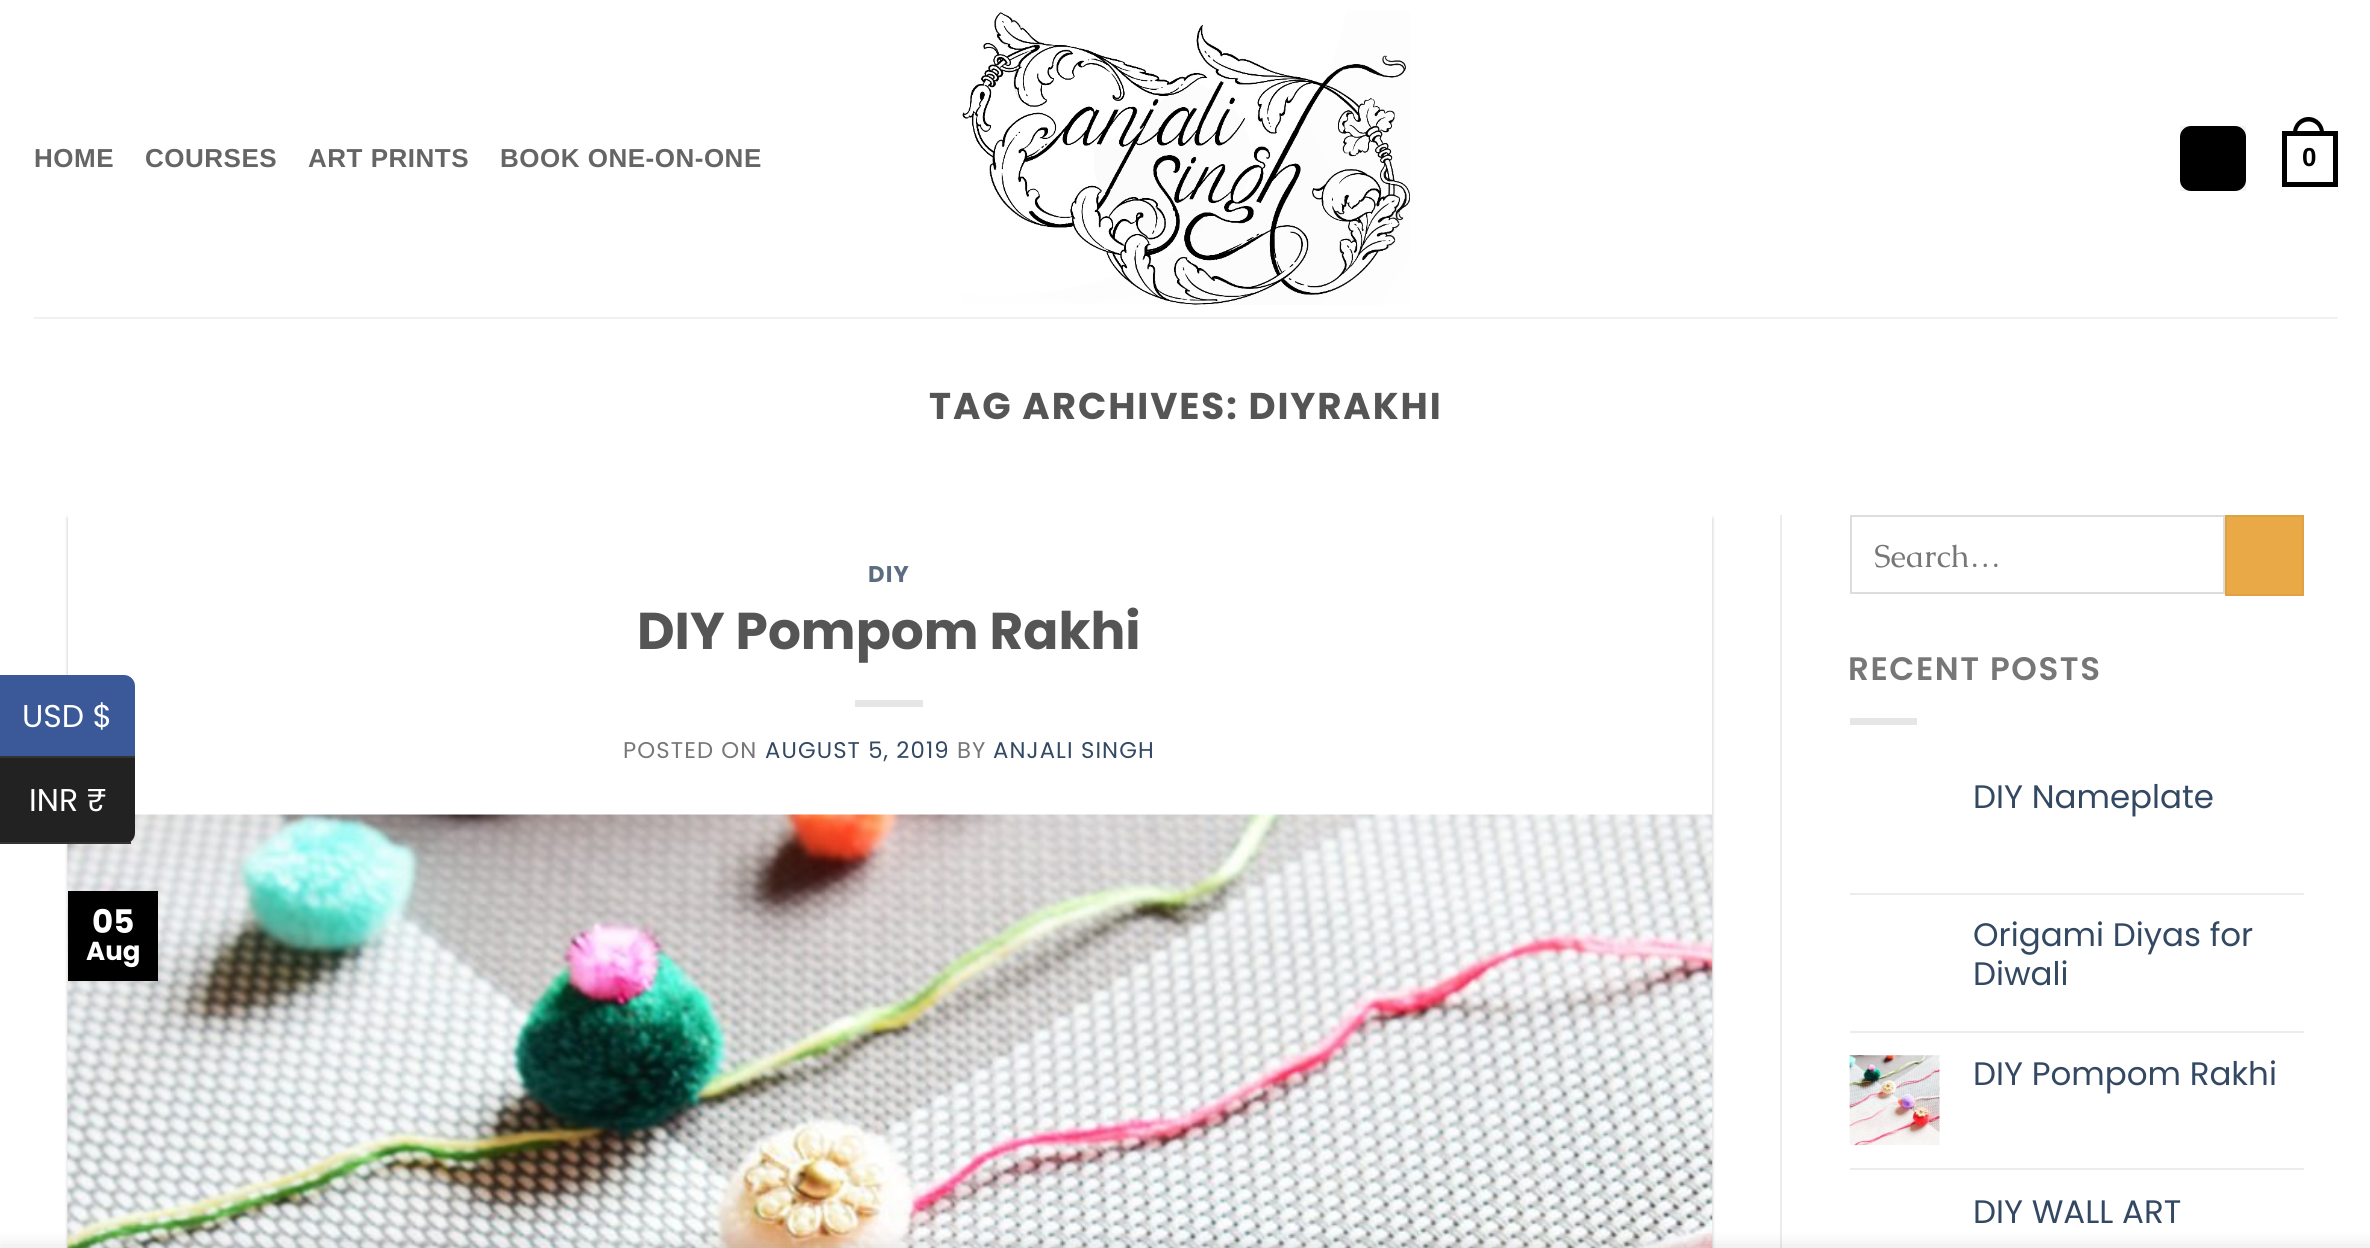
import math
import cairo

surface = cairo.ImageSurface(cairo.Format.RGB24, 2370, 1248)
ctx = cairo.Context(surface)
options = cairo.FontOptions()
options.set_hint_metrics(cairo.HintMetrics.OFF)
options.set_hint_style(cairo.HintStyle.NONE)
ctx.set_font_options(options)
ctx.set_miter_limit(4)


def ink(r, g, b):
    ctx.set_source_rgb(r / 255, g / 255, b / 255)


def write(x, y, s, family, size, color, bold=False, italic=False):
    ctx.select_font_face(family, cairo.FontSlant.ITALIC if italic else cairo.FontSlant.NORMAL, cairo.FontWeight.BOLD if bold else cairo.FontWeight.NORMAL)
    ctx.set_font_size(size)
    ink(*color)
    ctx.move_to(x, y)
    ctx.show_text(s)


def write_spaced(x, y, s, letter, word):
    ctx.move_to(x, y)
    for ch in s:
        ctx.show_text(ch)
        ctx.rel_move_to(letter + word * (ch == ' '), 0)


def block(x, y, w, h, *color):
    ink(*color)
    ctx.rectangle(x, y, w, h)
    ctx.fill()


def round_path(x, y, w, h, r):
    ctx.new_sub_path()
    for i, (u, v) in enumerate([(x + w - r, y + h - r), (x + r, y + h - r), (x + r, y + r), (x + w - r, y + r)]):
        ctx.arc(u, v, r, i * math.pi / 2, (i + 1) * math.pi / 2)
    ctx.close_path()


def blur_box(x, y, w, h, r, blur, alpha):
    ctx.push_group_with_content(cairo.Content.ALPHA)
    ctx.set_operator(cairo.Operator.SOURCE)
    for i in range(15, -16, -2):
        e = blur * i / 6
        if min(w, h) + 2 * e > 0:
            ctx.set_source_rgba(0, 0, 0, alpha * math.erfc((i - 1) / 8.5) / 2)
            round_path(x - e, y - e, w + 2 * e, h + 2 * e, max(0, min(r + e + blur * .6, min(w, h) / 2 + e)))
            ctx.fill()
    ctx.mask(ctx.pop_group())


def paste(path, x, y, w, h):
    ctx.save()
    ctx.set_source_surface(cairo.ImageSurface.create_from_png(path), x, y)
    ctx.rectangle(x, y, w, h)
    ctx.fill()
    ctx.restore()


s1 = dict(family="Poppins", size=51.75, color=(85, 85, 85), bold=True)
s2 = dict(family="Poppins", size=32.5, color=(255, 255, 255), bold=True)
s3 = dict(family="Poppins", size=26, color=(255, 255, 255), bold=True)
s4 = dict(family="Caudex", size=31.5, color=(119, 119, 119))
s5 = dict(family="Poppins", size=32.5, color=(51, 72, 98))
s6 = dict(family="Poppins", size=31.5, color=(255, 255, 255))

ink(255, 255, 255)
ctx.paint()
ctx.select_font_face("Liberation Sans", cairo.FontSlant.NORMAL, cairo.FontWeight.BOLD)
ctx.set_font_size(26)
ink(101, 101, 101)
write_spaced(34, 167, "HOME", 0.5, 0)
write_spaced(145, 167, "COURSES", 0.5, 0)
write_spaced(308, 167, "ART PRINTS", 0.5, 0)
write_spaced(500, 167, "BOOK ONE-ON-ONE", 0.5, 0)
paste("pic1.png", 962, 11, 448, 294)
ink(0, 0, 0)
round_path(2180, 126, 66, 65, 11)
ctx.fill()
ctx.rectangle(2181, 127, 64, 63)
ctx.set_source_rgba(0, 0, 0, 0.05)
ctx.stroke()
ctx.rectangle(2284.5, 133.5, 51, 51)
ink(0, 0, 0)
ctx.set_line_width(5)
ctx.stroke()
ctx.set_fill_rule(cairo.FillRule.EVEN_ODD)
ctx.new_path()
ctx.move_to(2308.5, 117)
ctx.curve_to(2317, 117, 2324, 124, 2324, 133)
ctx.line_to(2324, 135)
ctx.line_to(2293, 135)
ctx.line_to(2293, 133)
ctx.curve_to(2293, 124, 2300, 117, 2308.5, 117)
ctx.close_path()
ctx.move_to(2308.5, 121.5)
ctx.curve_to(2314.5, 121.5, 2320, 126.5, 2320, 133)
ctx.line_to(2320, 135)
ctx.line_to(2297, 135)
ctx.line_to(2297, 133)
ctx.curve_to(2297, 126.5, 2302.5, 121.5, 2308.5, 121.5)
ctx.close_path()
ctx.fill()
write_spaced(2302, 166, "0", 0.5, 0)
block(34, 317, 2304, 2, 241, 241, 241)
ctx.select_font_face("Poppins", cairo.FontSlant.NORMAL, cairo.FontWeight.BOLD)
ctx.set_font_size(37.25)
ink(85, 85, 85)
write_spaced(929, 419, "TAG ARCHIVES: DIYRAKHI", 1.9, 0)
ink(0, 0, 0)
blur_box(68, 518, 1644, 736, 0, 2, 0.24)
block(68, 515, 1644, 300, 255, 255, 255)
ctx.set_font_size(22.75)
ink(92, 109, 129)
write_spaced(868, 582, "DIY", 1.1, 0)
write(637, 649, "DIY Pompom Rakhi", **s1)
block(855, 700, 68, 7, 230, 230, 230)
ctx.select_font_face("Poppins")
ctx.set_font_size(22.75)
ink(119, 119, 119)
write_spaced(623, 758, "POSTED ON", 1.1, 0)
ink(51, 72, 98)
write_spaced(765, 758, "AUGUST 5, 2019", 1.1, 0)
ink(119, 119, 119)
write_spaced(957, 758, "BY", 1.1, 0)
ink(51, 72, 98)
write_spaced(993, 758, "ANJALI SINGH", 1.1, 0)
paste("pic2.png", 67, 814, 1646, 434)
block(68, 891, 90, 90, 0, 0, 0)
write(92, 933, "05", **s2)
write(86, 960, "Aug", **s3)
block(1780, 515, 2, 733, 236, 236, 236)
ctx.rectangle(1851, 516, 373, 77)
ink(221, 221, 221)
ctx.set_line_width(2)
ctx.stroke()
write(1874, 567, "Search…", **s4)
ink(234, 169, 71)
ctx.rectangle(2226, 516, 77, 79)
ctx.fill_preserve()
ink(222, 161, 67)
ctx.stroke()
ctx.select_font_face("Poppins SemiBold")
ctx.set_font_size(32.5)
ink(119, 119, 119)
write_spaced(1848, 680, "RECENT POSTS", 1.6, 0)
block(1850, 718, 67, 7, 230, 230, 230)
write(1973, 808, "DIY Nameplate", **s5)
block(1850, 893, 454, 2, 236, 236, 236)
write(1973, 946, "Origami Diyas for", **s5)
write(1973, 985, "Diwali", **s5)
block(1850, 1031, 454, 2, 236, 236, 236)
paste("pic3.png", 1849, 1055, 91, 91)
write(1973, 1085, "DIY Pompom Rakhi", **s5)
block(1850, 1168, 454, 2, 236, 236, 236)
write(1973, 1223, "DIY WALL ART", **s5)
ink(59, 89, 152)
ctx.new_path()
ctx.move_to(0, 675)
ctx.line_to(124, 675)
ctx.curve_to(130, 675, 135, 680, 135, 686)
ctx.line_to(135, 758)
ctx.line_to(0, 758)
ctx.close_path()
ctx.fill()
block(0, 756, 135, 2, 51, 51, 51)
write(22, 727, "USD $", **s6)
ink(34, 34, 34)
ctx.new_path()
ctx.move_to(0, 758)
ctx.line_to(135, 758)
ctx.line_to(135, 833)
ctx.curve_to(135, 839, 130, 844, 124, 844)
ctx.line_to(0, 844)
ctx.close_path()
ctx.fill()
block(0, 842, 131, 2, 51, 51, 51)
write(29, 811, "INR ₹", **s6)
ink(0, 0, 0)
blur_box(0, 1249, 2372, 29, 0, 10, 0.14)
surface.write_to_png("screenshot.png")
